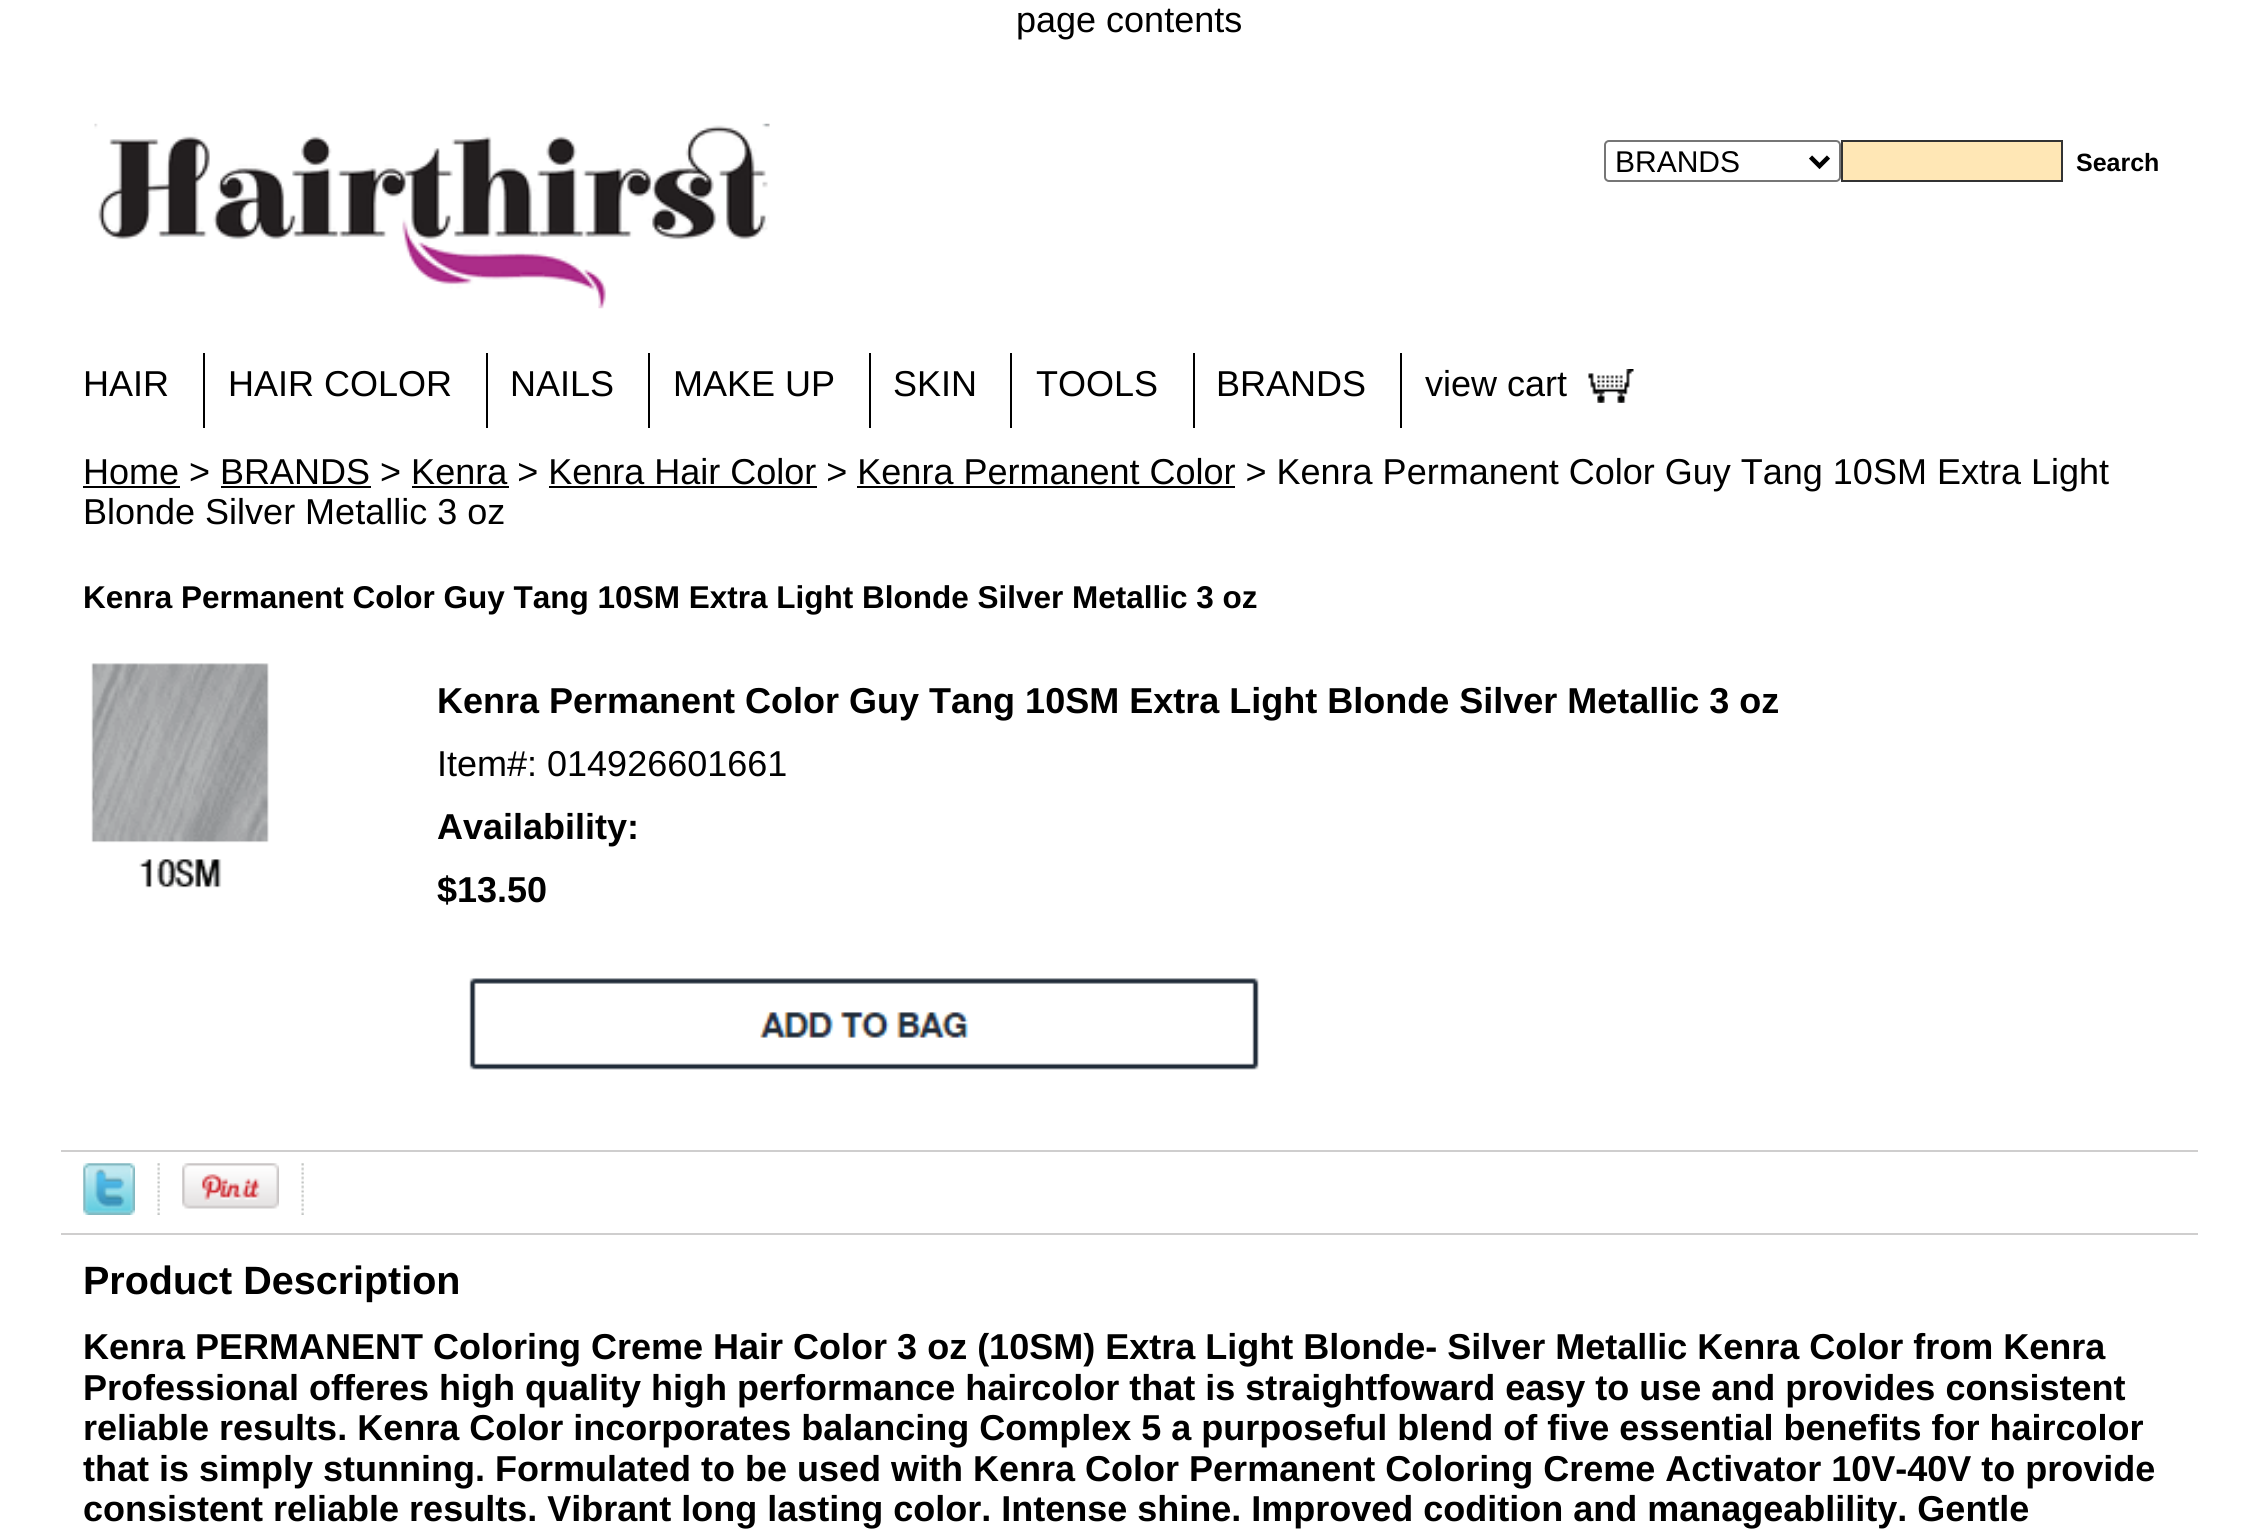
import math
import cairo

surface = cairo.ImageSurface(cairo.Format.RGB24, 2258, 1533)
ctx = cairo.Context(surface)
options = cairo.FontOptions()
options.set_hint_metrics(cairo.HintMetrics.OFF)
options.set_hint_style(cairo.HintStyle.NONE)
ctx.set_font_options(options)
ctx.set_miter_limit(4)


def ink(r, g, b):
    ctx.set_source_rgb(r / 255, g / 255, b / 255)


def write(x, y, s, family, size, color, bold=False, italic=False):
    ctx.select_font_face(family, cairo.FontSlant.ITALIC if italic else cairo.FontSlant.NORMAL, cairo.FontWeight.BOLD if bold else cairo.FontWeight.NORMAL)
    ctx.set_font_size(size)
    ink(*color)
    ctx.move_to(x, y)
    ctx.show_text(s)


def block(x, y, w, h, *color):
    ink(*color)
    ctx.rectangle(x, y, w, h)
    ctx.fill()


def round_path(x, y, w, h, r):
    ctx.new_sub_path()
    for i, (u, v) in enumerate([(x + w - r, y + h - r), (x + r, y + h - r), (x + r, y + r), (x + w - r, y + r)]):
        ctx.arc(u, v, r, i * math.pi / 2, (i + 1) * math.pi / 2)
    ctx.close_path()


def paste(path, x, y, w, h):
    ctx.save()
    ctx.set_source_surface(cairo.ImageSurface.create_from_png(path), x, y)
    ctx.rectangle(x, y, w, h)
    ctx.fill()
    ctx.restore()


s1 = dict(family="Liberation Sans", size=36, color=(0, 0, 0))
s2 = dict(family="Liberation Sans", size=30, color=(0, 0, 0))
s3 = dict(family="Liberation Sans", size=25, color=(0, 0, 0), bold=True)
s4 = dict(family="Liberation Sans", size=31.5, color=(0, 0, 0), bold=True)
s5 = dict(family="Liberation Sans", size=36, color=(0, 0, 0), bold=True)
s6 = dict(family="Liberation Sans", size=39.5, color=(0, 0, 0), bold=True)

ink(255, 255, 255)
ctx.paint()
write(1016, 32, "page contents", **s1)
paste("pic1.png", 94, 123, 676, 186)
round_path(1605, 141, 235, 40, 4)
ink(118, 118, 118)
ctx.stroke()
ctx.new_path()
ctx.move_to(1810.5, 157)
ctx.line_to(1819.5, 166)
ctx.line_to(1828.5, 157)
ink(0, 0, 0)
ctx.set_line_width(4.5)
ctx.stroke()
write(1615, 172, "BRANDS", **s2)
ink(255, 231, 181)
ctx.rectangle(1842, 141, 220, 40)
ctx.fill_preserve()
ink(51, 51, 51)
ctx.set_line_width(2)
ctx.stroke()
write(2076, 171, "Search", **s3)
write(83, 396, "HAIR", **s1)
block(203, 353, 2, 75, 0, 0, 0)
write(228, 396, "HAIR COLOR", **s1)
block(486, 353, 2, 75, 0, 0, 0)
write(510, 396, "NAILS", **s1)
block(648, 353, 2, 75, 0, 0, 0)
write(673, 396, "MAKE UP", **s1)
block(869, 353, 2, 75, 0, 0, 0)
write(893, 396, "SKIN", **s1)
block(1010, 353, 2, 75, 0, 0, 0)
write(1036, 396, "TOOLS", **s1)
block(1193, 353, 2, 75, 0, 0, 0)
write(1216, 396, "BRANDS", **s1)
block(1400, 353, 2, 75, 0, 0, 0)
write(1425, 396, "view cart", **s1)
paste("pic2.png", 1588, 369, 46, 34)
block(83, 486, 97, 2, 0, 0, 0)
write(83, 484, "Home > BRANDS > Kenra > Kenra Hair Color > Kenra Permanent Color > Kenra Permanent Color Guy Tang 10SM Extra Light", **s1)
block(221, 486, 150, 2, 0, 0, 0)
block(412, 486, 97, 2, 0, 0, 0)
block(549, 486, 268, 2, 0, 0, 0)
block(857, 486, 378, 2, 0, 0, 0)
write(83, 524, "Blonde Silver Metallic 3 oz", **s1)
write(83, 608, "Kenra Permanent Color Guy Tang 10SM Extra Light Blonde Silver Metallic 3 oz", **s4)
paste("pic3.png", 91, 663, 178, 225)
write(437, 713, "Kenra Permanent Color Guy Tang 10SM Extra Light Blonde Silver Metallic 3 oz", **s5)
write(437, 776, "Item#: 014926601661", **s1)
write(437, 839, "Availability:", **s5)
write(437, 902, "$13.50", **s5)
paste("pic4.png", 469, 978, 790, 92)
block(61, 1150, 2137, 2, 207, 206, 206)
paste("pic5.png", 83, 1163, 52, 52)
paste("pic6.png", 157, 1163, 3, 52)
paste("pic7.png", 182, 1163, 97, 46)
paste("pic6.png", 301, 1163, 3, 52)
block(61, 1233, 2137, 2, 207, 206, 206)
write(83, 1294, "Product Description", **s6)
write(83, 1359, "Kenra PERMANENT Coloring Creme Hair Color 3 oz (10SM) Extra Light Blonde- Silver Metallic Kenra Color from Kenra", **s5)
write(83, 1400, "Professional offeres high quality high performance haircolor that is straightfoward easy to use and provides consistent", **s5)
write(83, 1440, "reliable results. Kenra Color incorporates balancing Complex 5 a purposeful blend of five essential benefits for haircolor", **s5)
write(83, 1481, "that is simply stunning. Formulated to be used with Kenra Color Permanent Coloring Creme Activator 10V-40V to provide", **s5)
write(83, 1521, "consistent reliable results. Vibrant long lasting color. Intense shine. Improved codition and manageablility. Gentle", **s5)
surface.write_to_png("screenshot.png")
